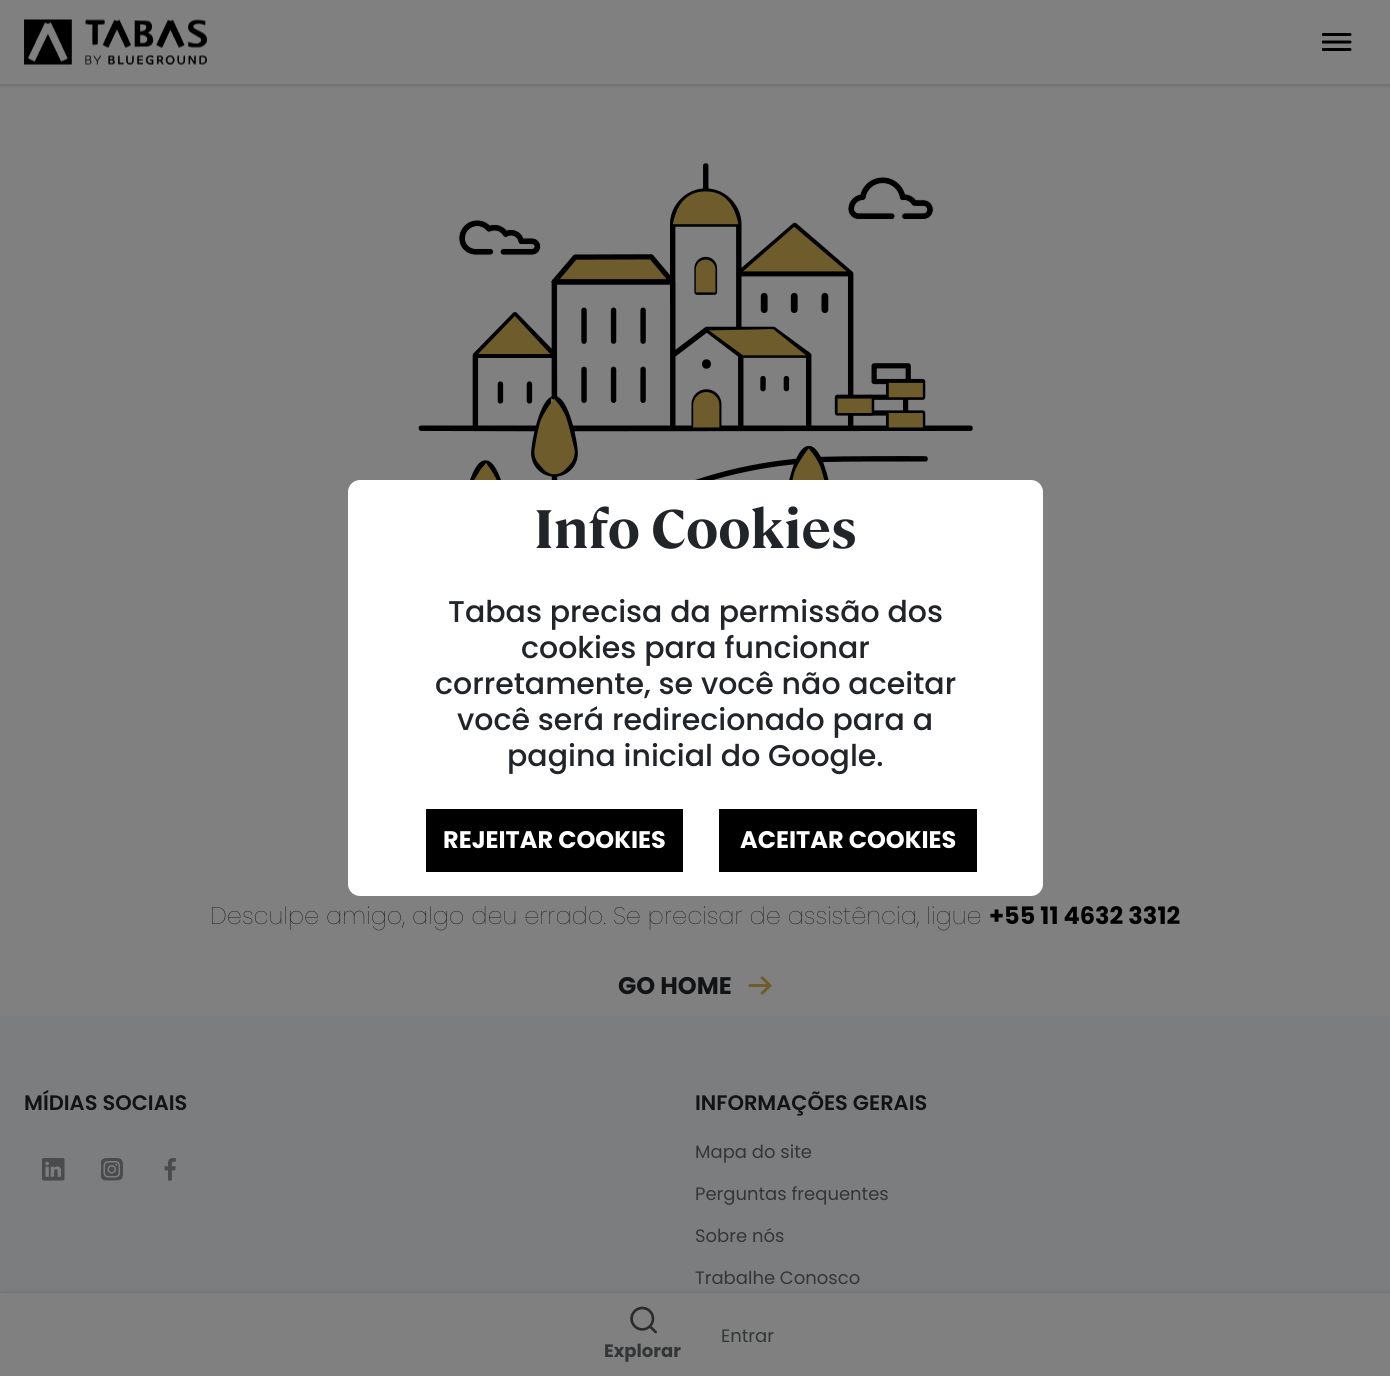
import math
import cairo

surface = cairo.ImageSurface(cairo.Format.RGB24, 1390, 1376)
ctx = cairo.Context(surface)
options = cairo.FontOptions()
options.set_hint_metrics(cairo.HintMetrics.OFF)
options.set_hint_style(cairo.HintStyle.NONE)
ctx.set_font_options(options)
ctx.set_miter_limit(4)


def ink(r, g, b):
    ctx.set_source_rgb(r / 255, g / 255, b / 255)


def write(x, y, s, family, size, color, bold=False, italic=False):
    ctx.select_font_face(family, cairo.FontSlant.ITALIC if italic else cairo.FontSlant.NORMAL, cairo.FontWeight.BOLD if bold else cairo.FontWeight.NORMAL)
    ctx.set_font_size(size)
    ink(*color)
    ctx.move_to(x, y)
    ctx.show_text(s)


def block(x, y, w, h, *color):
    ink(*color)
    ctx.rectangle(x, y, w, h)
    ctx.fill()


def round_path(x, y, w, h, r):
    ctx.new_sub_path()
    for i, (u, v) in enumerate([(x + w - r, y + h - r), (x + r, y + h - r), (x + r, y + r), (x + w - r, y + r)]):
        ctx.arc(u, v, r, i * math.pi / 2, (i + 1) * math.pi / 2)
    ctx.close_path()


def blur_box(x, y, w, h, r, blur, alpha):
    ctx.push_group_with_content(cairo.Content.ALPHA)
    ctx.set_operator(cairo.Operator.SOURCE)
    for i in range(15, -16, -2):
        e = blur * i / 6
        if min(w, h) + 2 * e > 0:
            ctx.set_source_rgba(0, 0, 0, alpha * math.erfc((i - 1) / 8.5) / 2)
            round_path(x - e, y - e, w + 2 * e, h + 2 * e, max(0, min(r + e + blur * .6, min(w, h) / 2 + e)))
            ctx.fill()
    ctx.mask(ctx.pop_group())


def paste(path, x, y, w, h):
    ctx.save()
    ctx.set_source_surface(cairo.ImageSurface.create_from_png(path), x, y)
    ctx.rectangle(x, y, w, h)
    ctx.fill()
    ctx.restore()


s1 = dict(family="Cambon", size=54, color=(33, 37, 41), bold=True)
s2 = dict(family="Poppins Medium", size=30, color=(33, 37, 41))
s3 = dict(family="Poppins", size=24, color=(255, 255, 255), bold=True)
s4 = dict(family="Poppins Thin", size=24, color=(17, 19, 21))
s5 = dict(family="Poppins", size=24, color=(0, 0, 0), bold=True)
s6 = dict(family="Poppins", size=24, color=(17, 19, 21), bold=True)
s7 = dict(family="Poppins SemiBold", size=21, color=(17, 19, 21))
s8 = dict(family="Poppins", size=18, color=(51, 54, 55))
s9 = dict(family="Poppins", size=18, color=(51, 54, 55), bold=True)

ink(128, 128, 128)
ctx.paint()
ctx.save()
ctx.rectangle(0, 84, 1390, 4)
ctx.clip()
ink(21, 23, 25)
blur_box(0, 2, 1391, 84, 0, 1.5, 0.16)
ctx.restore()
paste("pic1.png", 24, 19, 183, 46)
paste("pic2.png", 1322, 33, 30, 18)
ink(255, 255, 255)
round_path(348, 480, 695, 416, 12)
ctx.fill()
write(534, 548, "Info Cookies", **s1)
write(448, 622, "Tabas precisa da permissão dos", **s2)
write(521, 658, "cookies para funcionar", **s2)
write(435, 694, "corretamente, se você não aceitar", **s2)
write(457, 730, "você será redirecionado para a", **s2)
write(507, 766, "pagina inicial do Google.", **s2)
block(426, 809, 257, 63, 0, 0, 0)
write(443, 848, "REJEITAR COOKIES", **s3)
block(719, 809, 258, 63, 0, 0, 0)
write(740, 848, "ACEITAR COOKIES", **s3)
paste("pic3.png", 418, 163, 555, 317)
write(210, 924, "Desculpe amigo, algo deu errado. Se precisar de assistência, ligue", **s4)
write(989, 924, "+55 11 4632 3312", **s5)
write(618, 994, "GO HOME", **s6)
paste("pic4.png", 748, 976, 24, 19)
block(0, 1016, 1390, 277, 124, 125, 127)
write(24, 1110, "MÍDIAS SOCIAIS", **s7)
paste("pic5.png", 42, 1158, 23, 23)
paste("pic6.png", 101, 1158, 22, 23)
paste("pic7.png", 164, 1158, 12, 23)
write(695, 1110, "INFORMAÇÕES GERAIS", **s7)
write(695, 1158, "Mapa do site", **s8)
write(695, 1200, "Perguntas frequentes", **s8)
write(695, 1242, "Sobre nós", **s8)
write(695, 1284, "Trabalhe Conosco", **s8)
ink(106, 106, 106)
blur_box(2, 1293, 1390, 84, 0, 2, 1)
block(0, 1293, 1390, 83, 128, 128, 128)
write(721, 1342, "Entrar", **s8)
paste("pic8.png", 630, 1306, 27, 28)
write(604, 1357, "Explorar", **s9)
surface.write_to_png("screenshot.png")
